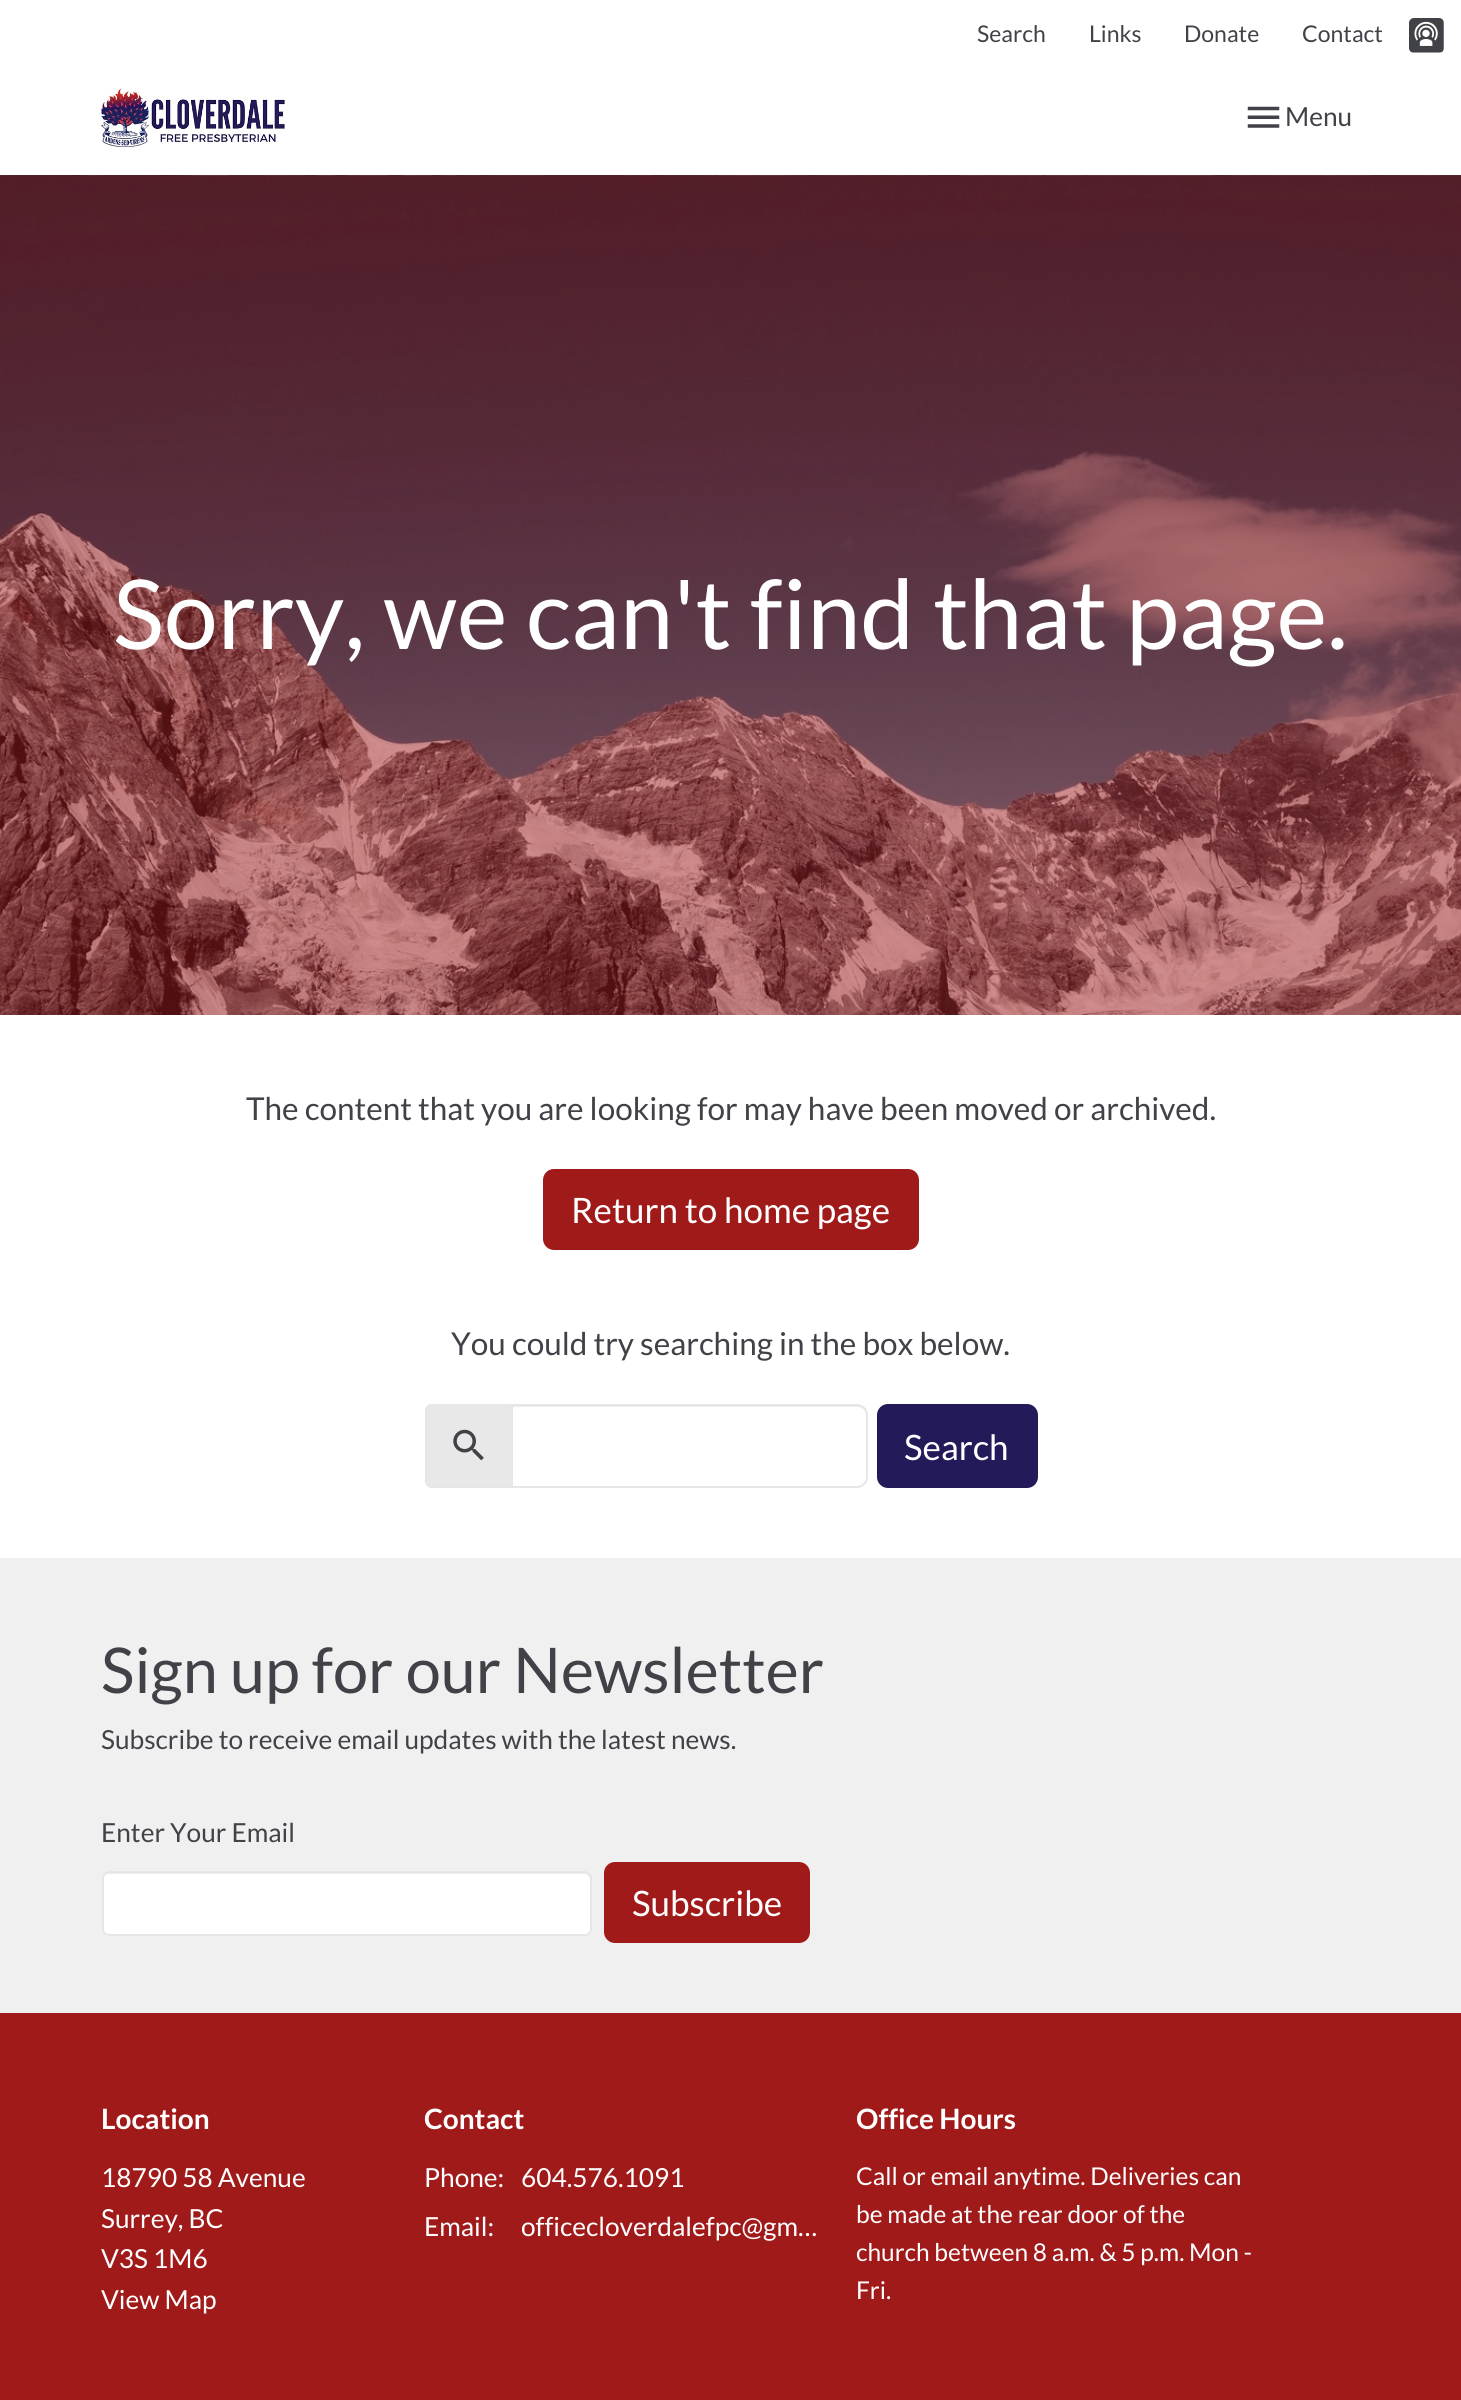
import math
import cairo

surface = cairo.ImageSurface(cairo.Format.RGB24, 1461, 2400)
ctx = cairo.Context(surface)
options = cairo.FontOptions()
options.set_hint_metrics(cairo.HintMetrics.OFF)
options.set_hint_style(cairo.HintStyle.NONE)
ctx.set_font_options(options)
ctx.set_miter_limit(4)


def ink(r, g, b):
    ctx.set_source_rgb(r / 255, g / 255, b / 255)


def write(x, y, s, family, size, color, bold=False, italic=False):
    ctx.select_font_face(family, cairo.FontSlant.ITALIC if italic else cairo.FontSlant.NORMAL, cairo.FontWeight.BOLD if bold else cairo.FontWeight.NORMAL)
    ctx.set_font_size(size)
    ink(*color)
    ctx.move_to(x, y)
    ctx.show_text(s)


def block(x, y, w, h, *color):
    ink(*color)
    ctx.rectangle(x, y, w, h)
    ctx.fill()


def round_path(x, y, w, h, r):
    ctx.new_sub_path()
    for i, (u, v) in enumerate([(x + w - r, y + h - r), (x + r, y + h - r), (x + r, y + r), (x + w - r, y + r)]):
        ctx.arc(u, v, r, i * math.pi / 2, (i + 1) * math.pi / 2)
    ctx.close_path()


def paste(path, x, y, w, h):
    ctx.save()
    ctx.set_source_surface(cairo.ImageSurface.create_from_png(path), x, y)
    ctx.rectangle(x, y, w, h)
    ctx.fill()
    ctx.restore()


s1 = dict(family="Lato", size=23, color=(65, 65, 72))
s2 = dict(family="Lato", size=26.25, color=(65, 65, 72))
s3 = dict(family="Lato", size=96.25, color=(255, 255, 255))
s4 = dict(family="Lato", size=31.5, color=(65, 65, 72))
s5 = dict(family="Lato", size=35, color=(255, 255, 255))
s6 = dict(family="Lato", size=63, color=(65, 65, 72))
s7 = dict(family="Lato", size=28, color=(255, 255, 255), bold=True)
s8 = dict(family="Lato", size=26.25, color=(255, 255, 255))
s9 = dict(family="Lato", size=24.5, color=(255, 255, 255))

ink(255, 255, 255)
ctx.paint()
write(977, 42, "Search", **s1)
write(1089, 42, "Links", **s1)
write(1184, 42, "Donate", **s1)
write(1302, 42, "Contact", **s1)
paste("pic1.png", 1409, 18, 35, 35)
paste("pic2.png", 101, 88, 184, 59)
paste("pic3.png", 1247, 106, 33, 22)
write(1285, 126, "Menu", **s2)
paste("pic4.png", 0, 175, 1461, 840)
write(113, 649, "Sorry, we can't find that page.", **s3)
write(246, 1120, "The content that you are looking for may have been moved or archived.", **s4)
ink(161, 26, 26)
round_path(543, 1169, 376, 81, 11)
ctx.fill()
write(571, 1223, "Return to home page", **s5)
write(451, 1355, "You could try searching in the box below.", **s4)
ink(232, 232, 232)
ctx.new_path()
ctx.move_to(432, 1404)
ctx.line_to(511, 1404)
ctx.line_to(511, 1488)
ctx.line_to(432, 1488)
ctx.curve_to(428, 1488, 425, 1485, 425, 1481)
ctx.line_to(425, 1411)
ctx.curve_to(425, 1407, 428, 1404, 432, 1404)
ctx.close_path()
ctx.fill()
ink(230, 230, 230)
ctx.set_fill_rule(cairo.FillRule.EVEN_ODD)
ctx.new_path()
ctx.move_to(432, 1404)
ctx.line_to(511, 1404)
ctx.line_to(511, 1488)
ctx.line_to(432, 1488)
ctx.curve_to(428, 1488, 425, 1484, 425, 1480)
ctx.line_to(425, 1410)
ctx.curve_to(425, 1407, 428, 1404, 432, 1404)
ctx.close_path()
ctx.move_to(432, 1405)
ctx.line_to(511, 1405)
ctx.line_to(511, 1486)
ctx.line_to(432, 1486)
ctx.curve_to(429, 1486, 427, 1483, 427, 1480)
ctx.line_to(427, 1410)
ctx.curve_to(427, 1408, 429, 1405, 432, 1405)
ctx.close_path()
ctx.fill()
paste("pic5.png", 453, 1429, 31, 32)
ink(236, 236, 236)
ctx.set_fill_rule(cairo.FillRule.WINDING)
ctx.new_path()
ctx.move_to(513, 1407)
ctx.line_to(858, 1407)
ctx.curve_to(862, 1407, 866, 1411, 866, 1416)
ctx.curve_to(866, 1410, 863, 1405, 857, 1405)
ctx.line_to(513, 1405)
ctx.close_path()
ctx.fill()
ctx.new_path()
ctx.move_to(512, 1405)
ctx.line_to(857, 1405)
ctx.curve_to(862.5, 1405, 867, 1409.5, 867, 1415)
ctx.line_to(867, 1477)
ctx.curve_to(867, 1482.5, 862.5, 1487, 857, 1487)
ctx.line_to(512, 1487)
ctx.close_path()
ink(230, 230, 230)
ctx.stroke()
ink(35, 26, 89)
round_path(877, 1404, 161, 84, 11)
ctx.fill()
write(904, 1460, "Search", **s5)
block(0, 1558, 1461, 455, 240, 240, 240)
write(101, 1693, "Sign up for our Newsletter", **s6)
write(101, 1749, "Subscribe to receive email updates with the latest news.", **s2)
write(101, 1842, "Enter Your Email", **s2)
ink(255, 255, 255)
round_path(102, 1871, 490, 65, 7)
ctx.fill()
ink(236, 236, 236)
ctx.new_path()
ctx.move_to(108, 1874)
ctx.line_to(584, 1874)
ctx.curve_to(587, 1874, 590, 1877, 590, 1880)
ctx.line_to(590, 1878)
ctx.curve_to(590, 1875, 588, 1873, 585, 1873)
ctx.line_to(108, 1873)
ctx.curve_to(105, 1873, 103, 1875, 103, 1878)
ctx.line_to(103, 1880)
ctx.curve_to(103, 1877, 106, 1874, 108, 1874)
ctx.close_path()
ctx.fill()
round_path(103, 1872, 488, 63, 6)
ink(230, 230, 230)
ctx.stroke()
ink(161, 26, 26)
round_path(604, 1862, 206, 81, 11)
ctx.fill()
write(632, 1916, "Subscribe", **s5)
block(0, 2013, 1461, 387, 161, 26, 26)
write(101, 2129, "Location", **s7)
write(101, 2187, "18790 58 Avenue", **s8)
write(101, 2228, "Surrey, BC", **s8)
write(101, 2268, "V3S 1M6", **s8)
write(101, 2309, "View Map", **s8)
write(424, 2129, "Contact", **s7)
write(424, 2187, "Phone:", **s8)
write(521, 2187, "604.576.1091", **s8)
write(424, 2236, "Email:", **s8)
ctx.save()
ctx.rectangle(522, 2207, 299, 40)
ctx.clip()
write(521, 2236, "officecloverdalefpc@gm…", **s8)
ctx.restore()
write(856, 2129, "Office Hours", **s7)
write(856, 2185, "Call or email anytime. Deliveries can", **s9)
write(856, 2223, "be made at the rear door of the", **s9)
write(856, 2261, "church between 8 a.m. & 5 p.m. Mon -", **s9)
write(856, 2299, "Fri.", **s9)
surface.write_to_png("screenshot.png")
